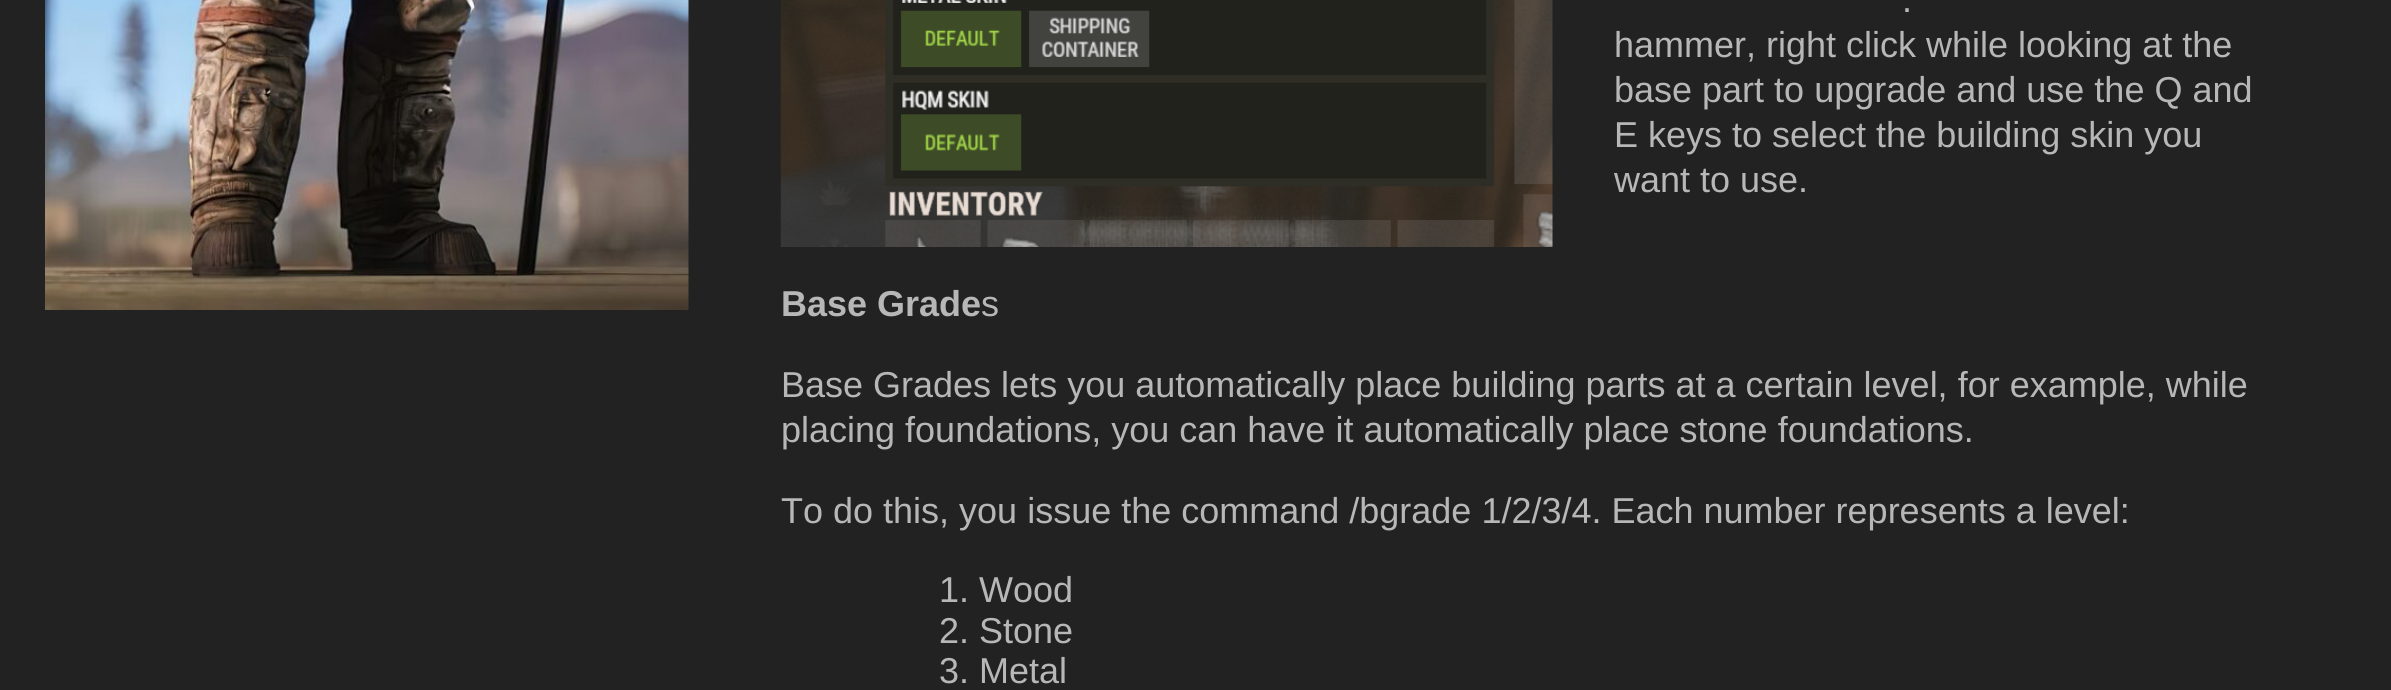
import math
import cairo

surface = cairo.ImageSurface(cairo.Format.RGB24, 2391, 690)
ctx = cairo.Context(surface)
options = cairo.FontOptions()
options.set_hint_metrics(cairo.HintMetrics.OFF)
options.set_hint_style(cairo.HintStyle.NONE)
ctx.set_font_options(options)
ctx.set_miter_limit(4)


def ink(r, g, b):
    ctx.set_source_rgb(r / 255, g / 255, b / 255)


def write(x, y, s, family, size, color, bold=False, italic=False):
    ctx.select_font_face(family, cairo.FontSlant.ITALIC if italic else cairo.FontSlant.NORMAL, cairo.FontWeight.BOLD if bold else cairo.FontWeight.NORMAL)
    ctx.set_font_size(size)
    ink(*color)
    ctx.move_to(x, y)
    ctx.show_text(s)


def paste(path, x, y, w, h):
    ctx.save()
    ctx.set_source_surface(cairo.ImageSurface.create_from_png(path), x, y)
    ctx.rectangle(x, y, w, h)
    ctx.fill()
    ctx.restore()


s1 = dict(family="Liberation Sans", size=36, color=(183, 183, 183))
s2 = dict(family="Liberation Sans", size=36, color=(183, 183, 183), bold=True)

ink(34, 34, 34)
ctx.paint()
paste("pic1.png", 45, 0, 644, 310)
paste("pic2.png", 780, 0, 773, 247)
write(1902, 12, ".", **s1)
write(1614, 57, "hammer, right click while looking at the", **s1)
write(1614, 102, "base part to upgrade and use the Q and", **s1)
write(1614, 147, "E keys to select the building skin you", **s1)
write(1614, 192, "want to use.", **s1)
write(781, 316, "Base Grade", **s2)
write(981, 316, "s", **s1)
write(781, 397, "Base Grades lets you automatically place building parts at a certain level, for example, while", **s1)
write(781, 442, "placing foundations, you can have it automatically place stone foundations.", **s1)
write(781, 523, "To do this, you issue the command /bgrade 1/2/3/4. Each number represents a level:", **s1)
write(939, 602, "1. Wood", **s1)
write(939, 643, "2. Stone", **s1)
write(939, 683, "3. Metal", **s1)
surface.write_to_png("screenshot.png")
